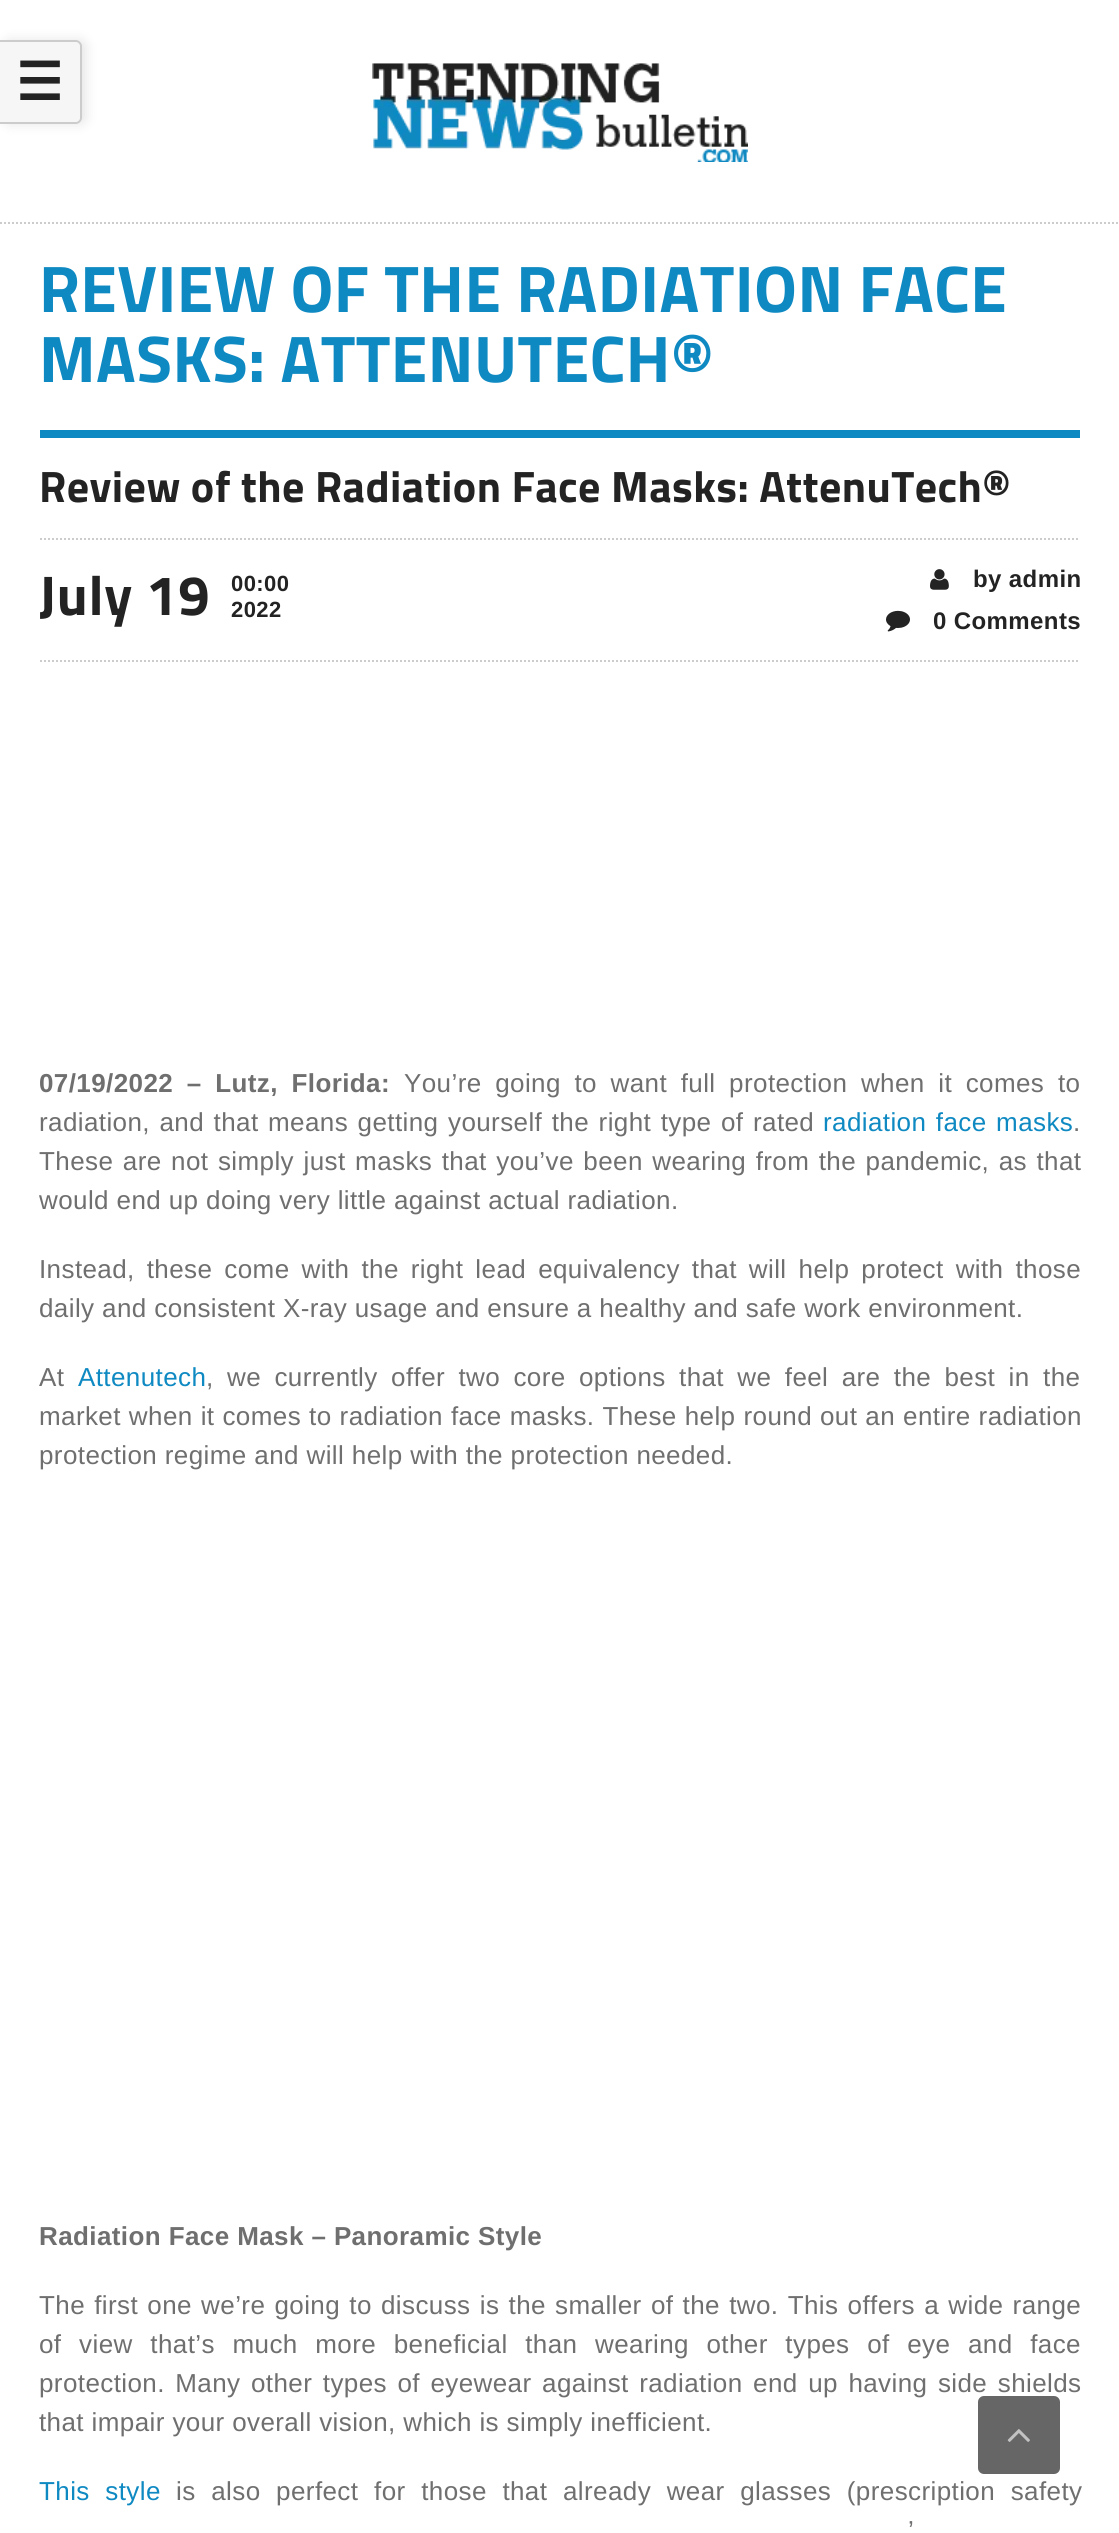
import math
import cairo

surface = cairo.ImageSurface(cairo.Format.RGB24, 1119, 2533)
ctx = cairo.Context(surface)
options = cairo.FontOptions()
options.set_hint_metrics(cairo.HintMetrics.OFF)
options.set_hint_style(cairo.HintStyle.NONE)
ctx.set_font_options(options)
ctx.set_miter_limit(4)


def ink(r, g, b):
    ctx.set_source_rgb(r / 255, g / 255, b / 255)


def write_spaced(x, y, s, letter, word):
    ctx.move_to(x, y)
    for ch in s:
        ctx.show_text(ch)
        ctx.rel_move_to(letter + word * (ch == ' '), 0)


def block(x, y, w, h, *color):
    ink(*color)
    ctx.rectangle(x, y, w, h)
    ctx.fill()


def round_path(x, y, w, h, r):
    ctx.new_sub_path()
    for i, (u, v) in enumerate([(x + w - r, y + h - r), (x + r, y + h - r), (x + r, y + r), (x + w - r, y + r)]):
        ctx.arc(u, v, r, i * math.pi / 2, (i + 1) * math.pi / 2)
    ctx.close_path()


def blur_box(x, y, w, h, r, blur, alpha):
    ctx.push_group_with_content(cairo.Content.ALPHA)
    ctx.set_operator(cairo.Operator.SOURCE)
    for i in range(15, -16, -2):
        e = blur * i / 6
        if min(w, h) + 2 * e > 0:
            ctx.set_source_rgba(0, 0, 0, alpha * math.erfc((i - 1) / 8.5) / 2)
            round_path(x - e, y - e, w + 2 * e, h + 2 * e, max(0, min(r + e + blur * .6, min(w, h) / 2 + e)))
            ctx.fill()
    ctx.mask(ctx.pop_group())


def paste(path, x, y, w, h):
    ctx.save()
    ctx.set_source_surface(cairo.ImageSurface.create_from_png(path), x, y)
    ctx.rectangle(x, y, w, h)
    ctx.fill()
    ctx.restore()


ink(255, 255, 255)
ctx.paint()
ink(0, 0, 0)
blur_box(4, 40, 82, 84, 6, 6, 0.1)
ink(246, 246, 246)
ctx.new_path()
ctx.move_to(0, 40)
ctx.line_to(76, 40)
ctx.curve_to(79.5, 40, 82, 42.5, 82, 46)
ctx.line_to(82, 118)
ctx.curve_to(82, 121.5, 79.5, 124, 76, 124)
ctx.line_to(0, 124)
ctx.close_path()
ctx.fill()
ink(204, 204, 204)
ctx.set_fill_rule(cairo.FillRule.EVEN_ODD)
ctx.new_path()
ctx.move_to(0, 40)
ctx.line_to(76, 40)
ctx.curve_to(79, 40, 82, 43, 82, 46)
ctx.line_to(82, 118)
ctx.curve_to(82, 121, 79, 124, 76, 124)
ctx.line_to(0, 124)
ctx.close_path()
ctx.move_to(0, 42)
ctx.line_to(76, 42)
ctx.curve_to(78, 42, 80, 44, 80, 46)
ctx.line_to(80, 118)
ctx.curve_to(80, 120, 78, 122, 76, 122)
ctx.line_to(0, 122)
ctx.close_path()
ctx.fill()
ctx.select_font_face("DejaVu Sans", cairo.FontSlant.NORMAL, cairo.FontWeight.BOLD)
ctx.set_font_size(52)
ink(35, 35, 35)
write_spaced(16, 100, "☰", 1, 0)
paste("pic1.png", 372, 63, 376, 99)
ctx.new_path()
ctx.move_to(0, 223)
ctx.line_to(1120, 223)
ink(204, 204, 204)
ctx.set_dash([2, 2])
ctx.stroke()
block(40, 430, 1040, 8, 14, 137, 194)
ctx.select_font_face("Titillium Web", cairo.FontSlant.NORMAL, cairo.FontWeight.BOLD)
ctx.set_font_size(66)
write_spaced(39, 312, "REVIEW OF THE RADIATION FACE", 0.4, 0)
write_spaced(39, 382, "MASKS: ATTENUTECH®", 0.4, 0)
ctx.new_path()
ctx.move_to(40, 539)
ctx.line_to(1080, 539)
ink(204, 204, 204)
ctx.stroke()
ctx.set_font_size(44)
ink(35, 35, 35)
write_spaced(39, 502, "Review of the Radiation Face Masks: AttenuTech®", 0.4, 0)
ctx.new_path()
ctx.move_to(40, 661)
ctx.line_to(1080, 661)
ink(204, 204, 204)
ctx.stroke()
ctx.set_font_size(56)
ink(35, 35, 35)
write_spaced(39, 615, "July 19", 0.75, 0)
ctx.select_font_face("Liberation Sans", cairo.FontSlant.NORMAL, cairo.FontWeight.BOLD)
ctx.set_font_size(22)
write_spaced(231, 591, "00:00", 0.4, 0)
write_spaced(231, 617, "2022", 0.4, 0)
paste("pic2.png", 930, 569, 19, 21)
ctx.set_font_size(24)
write_spaced(973, 587, "by admin", 0.4, 0)
paste("pic3.png", 886, 610, 24, 22)
write_spaced(933, 629, "0 Comments", 0.4, 0)
ctx.set_font_size(26)
ink(111, 111, 111)
write_spaced(39, 1092, "07/19/2022 – Lutz, Florida:", 0.4, 6)
ctx.select_font_face("Liberation Sans")
write_spaced(404, 1092, "You’re going to want full protection when it comes to", 0.4, 6)
write_spaced(39, 1131, "radiation, and that means getting yourself the right type of rated", 0.4, 1.9)
ink(14, 137, 194)
write_spaced(823, 1131, "radiation face masks", 0.4, 1.9)
ink(111, 111, 111)
write_spaced(1073, 1131, ".", 0.4, 0)
write_spaced(39, 1170, "These are not simply just masks that you’ve been wearing from the pandemic, as that", 0.4, 1.9)
write_spaced(39, 1209, "would end up doing very little against actual radiation.", 0.4, 0)
write_spaced(39, 1278, "Instead, these come with the right lead equivalency that will help protect with those", 0.4, 4.4)
write_spaced(39, 1317, "daily and consistent X-ray usage and ensure a healthy and safe work environment.", 0.4, 0)
write_spaced(39, 1386, "At", 0.4, 0)
ink(14, 137, 194)
write_spaced(78, 1386, "Attenutech", 0.4, 0)
ink(111, 111, 111)
write_spaced(206, 1386, ", we currently offer two core options that we feel are the best in the", 0.4, 5.75)
write_spaced(39, 1425, "market when it comes to radiation face masks. These help round out an entire radiation", 0.4, 0.4)
write_spaced(39, 1464, "protection regime and will help with the protection needed.", 0.4, 0)
ctx.select_font_face("Liberation Sans", cairo.FontSlant.NORMAL, cairo.FontWeight.BOLD)
write_spaced(39, 2245, "Radiation Face Mask – Panoramic Style", 0.4, 0)
ctx.select_font_face("Liberation Sans")
write_spaced(39, 2314, "The first one we’re going to discuss is the smaller of the two. This offers a wide range", 0.4, 1.6)
write_spaced(39, 2353, "of view that’s much more beneficial than wearing other types of eye and face", 0.4, 10)
write_spaced(39, 2392, "protection. Many other types of eyewear against radiation end up having side shields", 0.4, 2.9)
write_spaced(39, 2431, "that impair your overall vision, which is simply inefficient.", 0.4, 0)
ink(14, 137, 194)
write_spaced(39, 2500, "This style", 0.4, 8)
ink(111, 111, 111)
write_spaced(176, 2500, "is also perfect for those that already wear glasses (prescription safety", 0.4, 8)
write_spaced(908, 2539, "’", 0.4, 1)
ink(102, 102, 102)
round_path(978, 2396, 82, 78, 6)
ctx.fill()
paste("pic4.png", 1007, 2429, 23, 13)
surface.write_to_png("screenshot.png")
